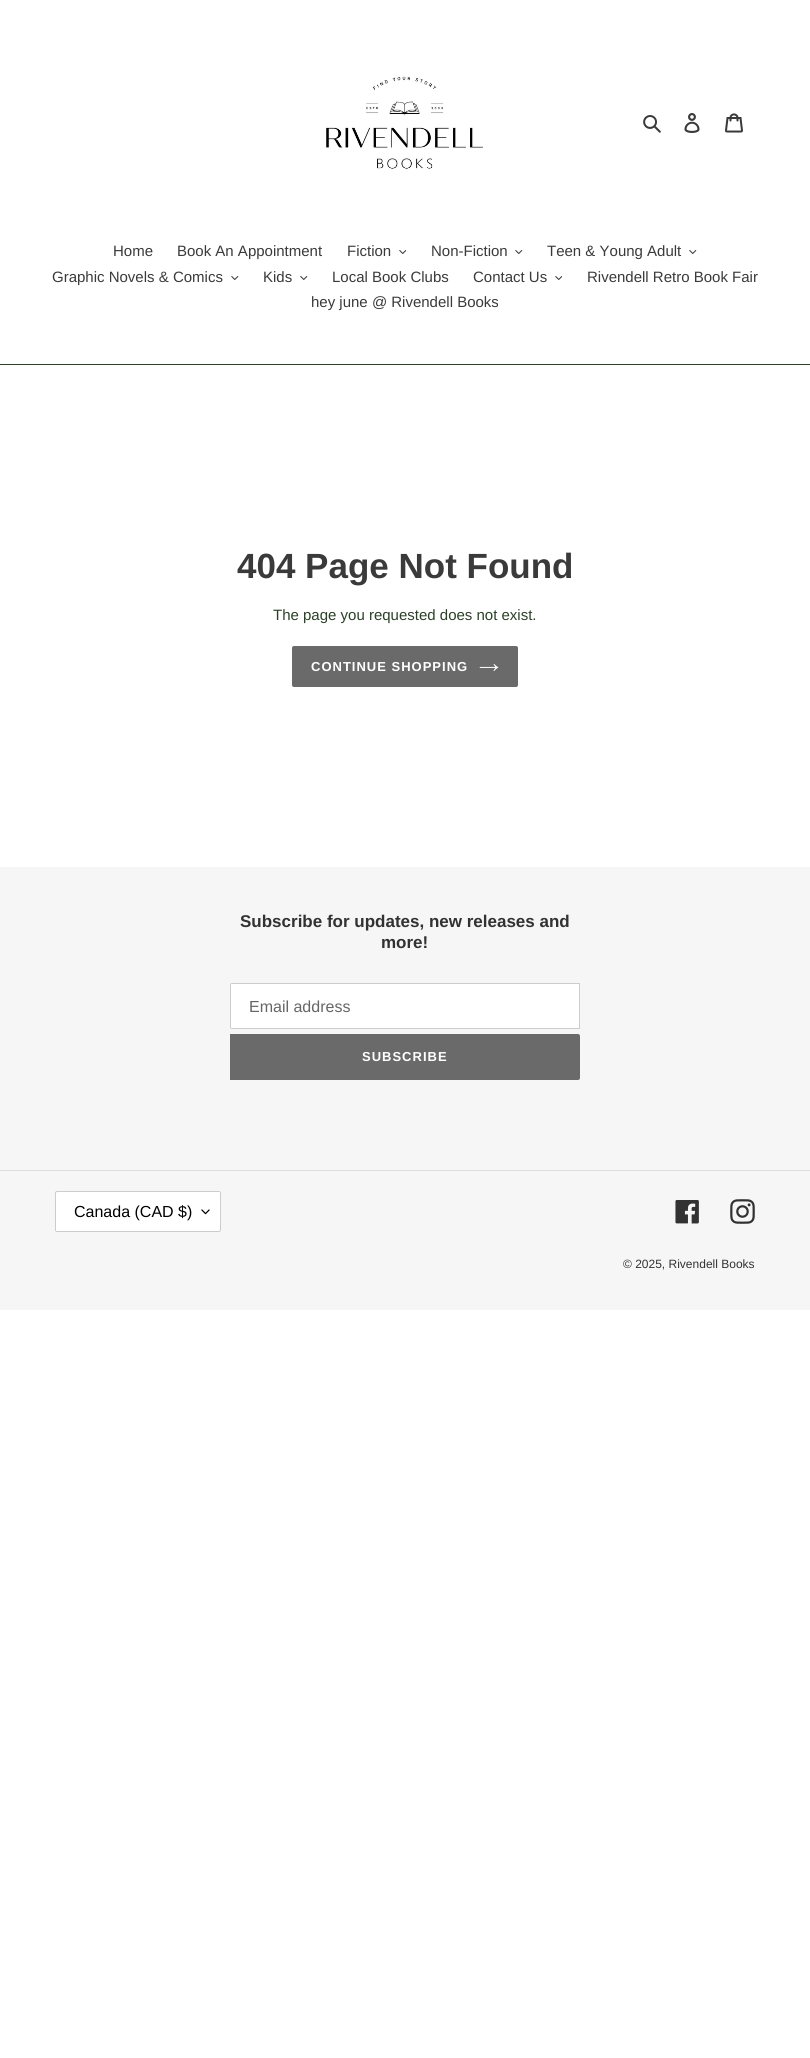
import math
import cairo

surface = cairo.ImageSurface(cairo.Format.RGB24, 810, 2058)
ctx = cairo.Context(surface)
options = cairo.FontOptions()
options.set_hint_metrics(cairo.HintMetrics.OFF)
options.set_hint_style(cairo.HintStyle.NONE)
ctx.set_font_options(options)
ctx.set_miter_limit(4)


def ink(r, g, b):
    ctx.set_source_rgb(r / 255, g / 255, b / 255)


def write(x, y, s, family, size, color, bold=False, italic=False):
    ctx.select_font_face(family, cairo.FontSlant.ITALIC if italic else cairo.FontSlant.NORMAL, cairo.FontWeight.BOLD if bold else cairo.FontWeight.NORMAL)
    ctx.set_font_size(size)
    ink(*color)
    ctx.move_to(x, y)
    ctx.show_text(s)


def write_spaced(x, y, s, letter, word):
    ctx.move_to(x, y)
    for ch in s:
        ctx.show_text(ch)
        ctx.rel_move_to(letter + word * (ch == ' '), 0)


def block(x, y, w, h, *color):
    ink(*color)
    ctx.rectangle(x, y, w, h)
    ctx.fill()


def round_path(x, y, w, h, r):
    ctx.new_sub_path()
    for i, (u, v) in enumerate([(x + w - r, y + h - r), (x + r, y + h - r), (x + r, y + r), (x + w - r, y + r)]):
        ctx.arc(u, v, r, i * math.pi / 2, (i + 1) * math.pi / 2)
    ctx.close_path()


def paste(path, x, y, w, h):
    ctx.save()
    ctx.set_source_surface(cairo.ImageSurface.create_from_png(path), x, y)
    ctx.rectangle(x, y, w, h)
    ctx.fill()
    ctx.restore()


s1 = dict(family="Liberation Sans", size=15, color=(58, 58, 58))
s2 = dict(family="Liberation Sans", size=35, color=(58, 58, 58), bold=True)
s3 = dict(family="Liberation Sans", size=15, color=(42, 65, 38))
s4 = dict(family="Liberation Sans", size=17, color=(51, 50, 50), bold=True)
s5 = dict(family="Liberation Sans", size=16, color=(102, 102, 102))
s6 = dict(family="Liberation Sans", size=16, color=(0, 0, 0))
s7 = dict(family="Liberation Sans", size=12, color=(51, 50, 50))

ink(255, 255, 255)
ctx.paint()
paste("pic1.png", 326, 76, 157, 94)
paste("pic2.png", 643, 115, 18, 18)
paste("pic3.png", 684, 113, 16, 20)
paste("pic4.png", 725, 113, 18, 20)
block(0, 364, 810, 1, 42, 65, 38)
write(113, 256, "Home", **s1)
write(177, 256, "Book An Appointment", **s1)
write(347, 256, "Fiction", **s1)
paste("pic5.png", 399, 250, 7, 4)
write(431, 256, "Non-Fiction", **s1)
paste("pic6.png", 515, 250, 8, 4)
write(547, 256, "Teen & Young Adult", **s1)
paste("pic6.png", 689, 250, 8, 4)
write(52, 282, "Graphic Novels & Comics", **s1)
paste("pic6.png", 231, 276, 8, 4)
write(263, 282, "Kids", **s1)
paste("pic6.png", 300, 276, 8, 4)
write(332, 282, "Local Book Clubs", **s1)
write(473, 282, "Contact Us", **s1)
paste("pic5.png", 555, 276, 7, 4)
write(587, 282, "Rivendell Retro Book Fair", **s1)
write(311, 307, "hey june @ Rivendell Books", **s1)
write(237, 578, "404 Page Not Found", **s2)
write(273, 620, "The page you requested does not exist.", **s3)
ink(106, 106, 106)
round_path(292, 646, 226, 41, 2)
ctx.fill()
ctx.select_font_face("Liberation Sans", cairo.FontSlant.NORMAL, cairo.FontWeight.BOLD)
ctx.set_font_size(13)
ink(255, 255, 255)
write_spaced(311, 671, "CONTINUE SHOPPING", 1, 0)
paste("pic7.png", 479, 663, 20, 8)
block(0, 867, 810, 443, 246, 246, 246)
write(240, 927, "Subscribe for updates, new releases and", **s4)
write(381, 948, "more!", **s4)
ink(255, 255, 255)
ctx.new_path()
ctx.move_to(232, 983.5)
ctx.line_to(579.5, 983.5)
ctx.line_to(579.5, 1028.5)
ctx.line_to(232, 1028.5)
ctx.curve_to(231, 1028.5, 230.5, 1028, 230.5, 1027)
ctx.line_to(230.5, 985)
ctx.curve_to(230.5, 984, 231, 983.5, 232, 983.5)
ctx.close_path()
ctx.fill_preserve()
ink(204, 204, 204)
ctx.set_line_width(1)
ctx.stroke()
write(249, 1012, "Email address", **s5)
ink(106, 106, 106)
ctx.new_path()
ctx.move_to(230, 1034)
ctx.line_to(578, 1034)
ctx.curve_to(579, 1034, 580, 1035, 580, 1036)
ctx.line_to(580, 1078)
ctx.curve_to(580, 1079, 579, 1080, 578, 1080)
ctx.line_to(230, 1080)
ctx.close_path()
ctx.fill()
ctx.select_font_face("Liberation Sans", cairo.FontSlant.NORMAL, cairo.FontWeight.BOLD)
ctx.set_font_size(13)
ink(255, 255, 255)
write_spaced(362, 1061, "SUBSCRIBE", 1, 0)
block(0, 1170, 810, 1, 221, 221, 221)
ink(255, 255, 255)
round_path(55, 1191, 166, 41, 2)
ctx.fill()
paste("pic8.png", 201, 1209, 9, 6)
round_path(55.5, 1191.5, 165, 40, 1.5)
ink(204, 204, 204)
ctx.stroke()
write(74, 1217, "Canada (CAD $)", **s6)
paste("pic9.png", 675, 1200, 24, 24)
paste("pic10.png", 730, 1199, 25, 25)
write(623, 1268, "© 2025, Rivendell Books", **s7)
surface.write_to_png("screenshot.png")
